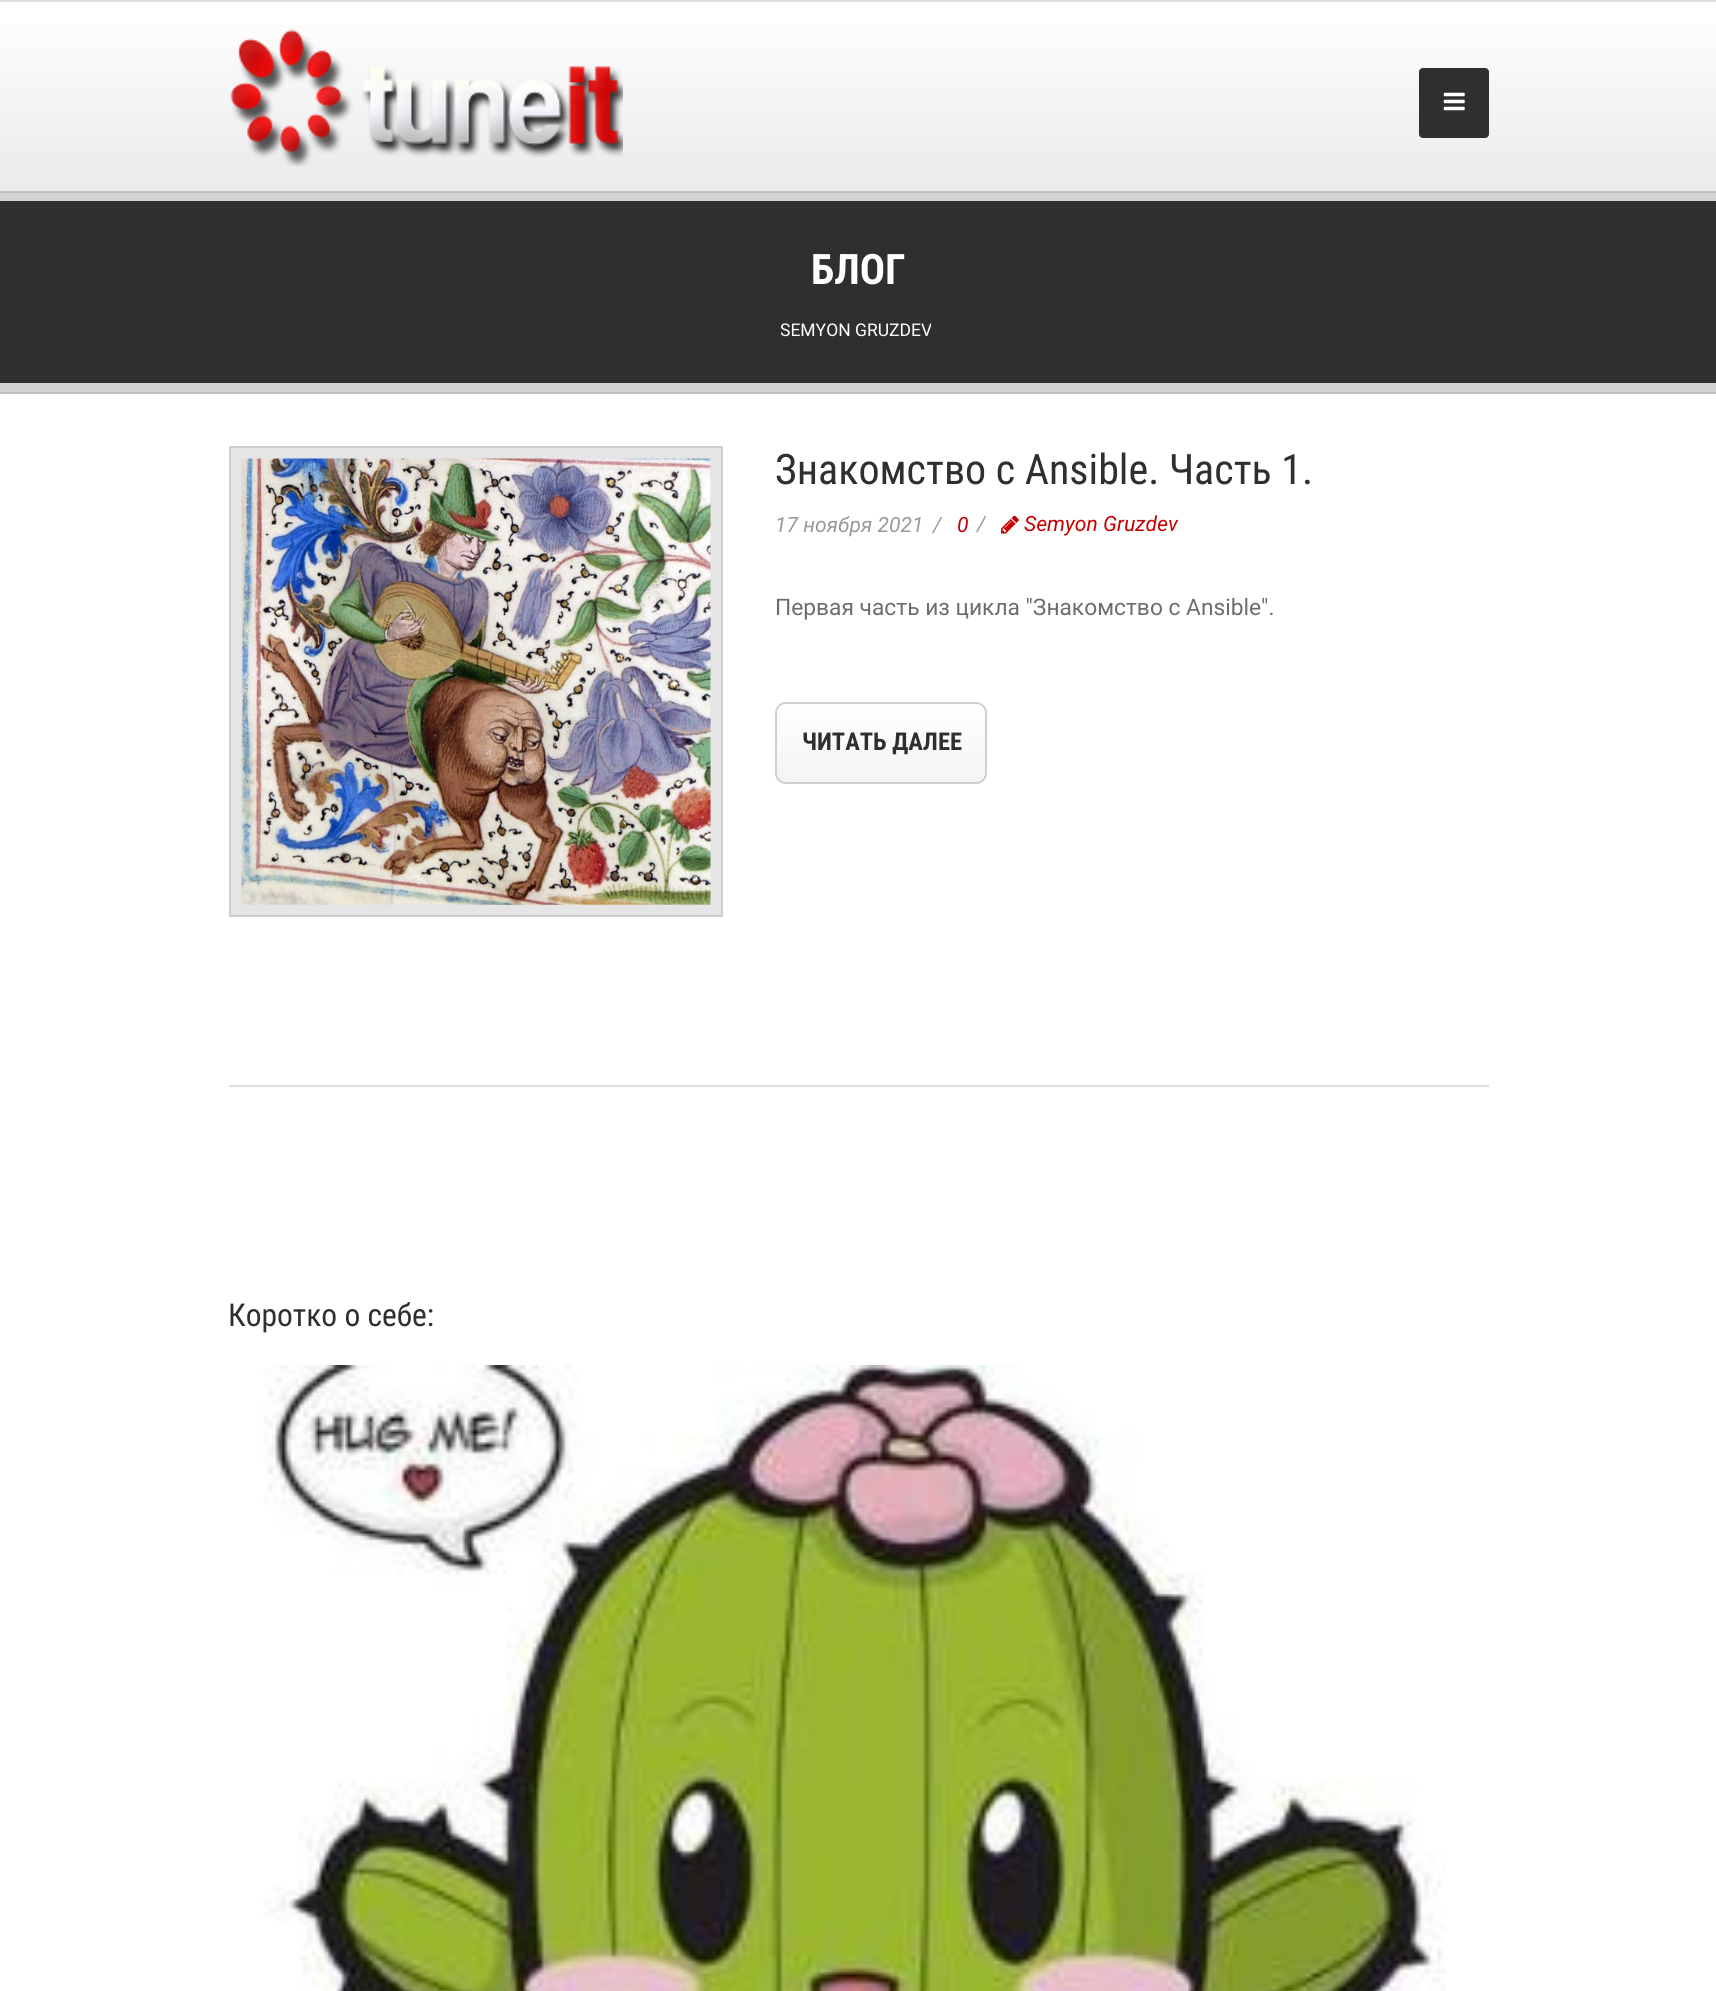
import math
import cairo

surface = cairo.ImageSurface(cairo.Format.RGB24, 1716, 1991)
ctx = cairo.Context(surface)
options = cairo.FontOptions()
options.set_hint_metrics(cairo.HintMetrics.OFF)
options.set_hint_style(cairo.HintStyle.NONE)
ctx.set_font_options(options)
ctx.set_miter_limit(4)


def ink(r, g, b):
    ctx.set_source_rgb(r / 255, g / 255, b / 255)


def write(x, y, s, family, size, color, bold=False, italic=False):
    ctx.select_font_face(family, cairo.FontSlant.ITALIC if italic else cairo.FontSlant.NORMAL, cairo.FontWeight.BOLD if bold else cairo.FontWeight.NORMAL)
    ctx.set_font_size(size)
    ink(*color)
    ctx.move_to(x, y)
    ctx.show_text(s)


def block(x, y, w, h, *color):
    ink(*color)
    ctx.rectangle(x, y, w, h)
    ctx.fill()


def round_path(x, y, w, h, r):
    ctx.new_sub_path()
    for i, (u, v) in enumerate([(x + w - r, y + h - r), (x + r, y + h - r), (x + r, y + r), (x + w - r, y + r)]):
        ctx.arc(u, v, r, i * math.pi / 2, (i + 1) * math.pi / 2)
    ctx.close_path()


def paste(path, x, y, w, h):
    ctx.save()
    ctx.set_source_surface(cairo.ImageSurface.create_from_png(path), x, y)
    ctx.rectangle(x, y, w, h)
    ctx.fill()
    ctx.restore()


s1 = dict(family="Roboto Condensed", size=42, color=(255, 255, 255), bold=True)
s2 = dict(family="Roboto", size=17.5, color=(255, 255, 255))
s3 = dict(family="Roboto Condensed", size=42, color=(47, 47, 47))
s4 = dict(family="Roboto", size=21, color=(153, 153, 153), italic=True)
s5 = dict(family="Roboto", size=21, color=(197, 0, 0), italic=True)
s6 = dict(family="Roboto", size=22.75, color=(109, 109, 109))
s7 = dict(family="Roboto Condensed", size=24.5, color=(47, 47, 47), bold=True)
s8 = dict(family="Roboto Condensed", size=31.5, color=(47, 47, 47))

ink(255, 255, 255)
ctx.paint()
block(0, 177, 1716, 14, 236, 236, 236)
block(0, 0, 1716, 2, 221, 221, 221)
gradient = cairo.LinearGradient(858, 1.7, 858, 177)
gradient.add_color_stop_rgba(0, 1, 1, 1, 1)
gradient.add_color_stop_rgba(1, 0.925, 0.925, 0.925, 1)
ctx.set_source(gradient)
ctx.rectangle(0, 25, 1716, 152)
ctx.fill()
paste("pic1.png", 230, 29, 393, 137)
ink(47, 47, 47)
round_path(1419, 68, 70, 70, 4)
ctx.fill()
paste("pic2.png", 1443, 92, 22, 19)
block(0, 201, 1716, 182, 47, 47, 47)
block(0, 193, 1716, 8, 212, 212, 212)
block(0, 383, 1716, 9, 212, 212, 212)
block(0, 191, 1716, 2, 191, 191, 191)
write(811, 284, "БЛОГ", **s1)
ctx.save()
ctx.rectangle(781, 313, 150, 35)
ctx.clip()
write(780, 336, "SEMYON GRUZDEV", **s2)
ctx.restore()
block(0, 392, 1716, 2, 191, 191, 191)
block(229, 1085, 1260, 2, 220, 220, 220)
ink(229, 229, 229)
ctx.rectangle(230, 447, 492, 469)
ctx.fill_preserve()
ink(206, 206, 206)
ctx.stroke()
paste("pic3.png", 241, 458, 470, 447)
write(775, 484, "Знакомство с Ansible. Часть 1.", **s3)
write(775, 532, "17 ноября 2021", **s4)
write(933, 532, "/", **s4)
write(957, 532, "0", **s5)
write(977, 531, "/", **s4)
paste("pic4.png", 1001, 515, 18, 19)
write(1024, 531, "Semyon Gruzdev", **s5)
write(775, 615, "Первая часть из цикла \"Знакомство с Ansible\".", **s6)
ctx.save()
round_path(775, 702, 212, 82, 11)
ctx.clip()
gradient = cairo.LinearGradient(881, 704, 881, 782)
gradient.add_color_stop_rgba(0, 1, 1, 1, 1)
gradient.add_color_stop_rgba(1, 0.957, 0.957, 0.957, 1)
ctx.set_source(gradient)
ctx.rectangle(775, 704, 212, 78)
ctx.fill()
ctx.restore()
round_path(776, 703, 210, 80, 10)
ink(207, 207, 207)
ctx.stroke()
write(802, 750, "ЧИТАТЬ ДАЛЕЕ", **s7)
write(228, 1326, "Коротко о себе:", **s8)
paste("pic5.png", 263, 1365, 1183, 626)
surface.write_to_png("screenshot.png")
